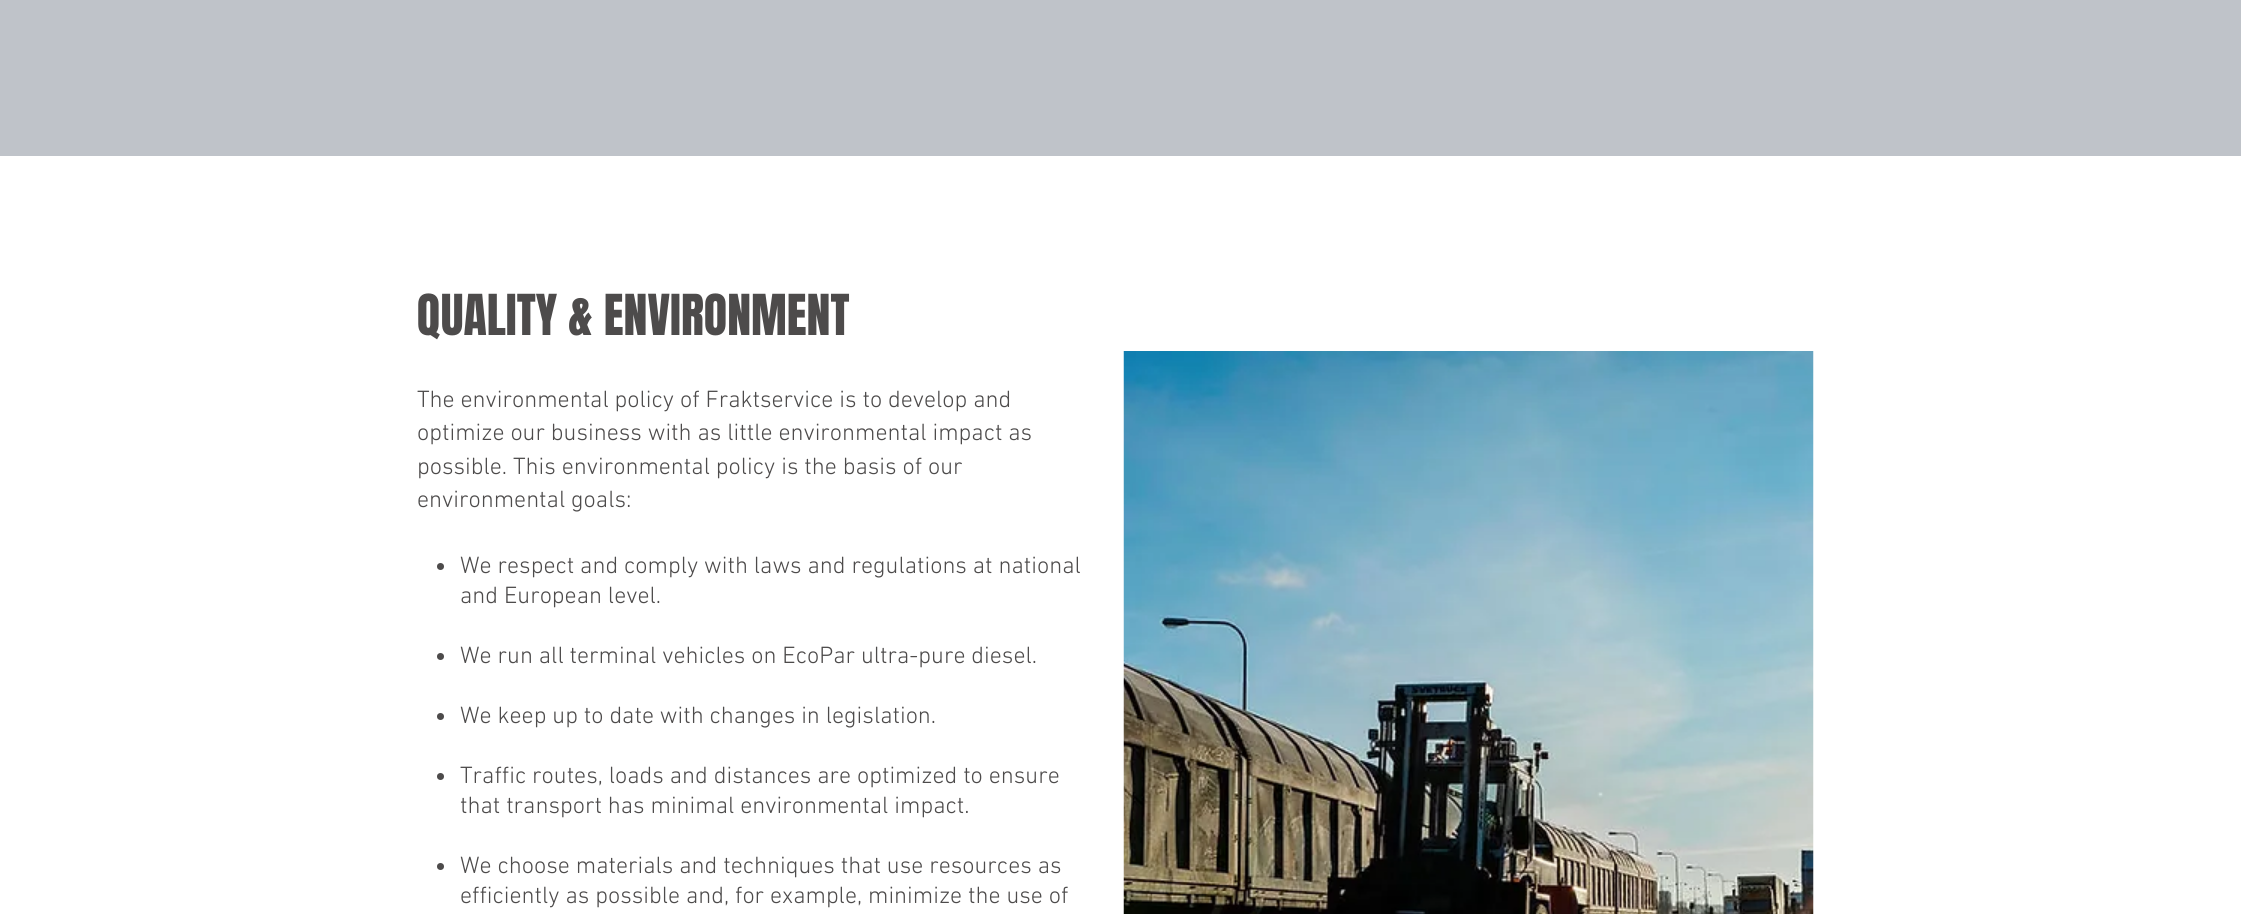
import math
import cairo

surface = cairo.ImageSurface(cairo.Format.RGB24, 2241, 914)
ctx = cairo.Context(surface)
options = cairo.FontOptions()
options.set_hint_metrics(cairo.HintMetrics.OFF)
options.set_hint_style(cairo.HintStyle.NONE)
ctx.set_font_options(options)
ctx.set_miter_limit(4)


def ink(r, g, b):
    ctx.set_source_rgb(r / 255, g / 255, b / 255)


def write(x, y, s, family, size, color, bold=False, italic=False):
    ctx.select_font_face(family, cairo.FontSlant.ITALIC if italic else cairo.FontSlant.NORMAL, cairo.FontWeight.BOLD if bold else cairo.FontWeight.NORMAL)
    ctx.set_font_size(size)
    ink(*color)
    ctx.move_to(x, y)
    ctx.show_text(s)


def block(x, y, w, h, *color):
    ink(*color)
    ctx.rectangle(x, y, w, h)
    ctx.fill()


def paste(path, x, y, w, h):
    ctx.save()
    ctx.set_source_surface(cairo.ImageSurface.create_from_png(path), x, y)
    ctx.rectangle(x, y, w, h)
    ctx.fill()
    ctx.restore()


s1 = dict(family="Anton", size=48, color=(77, 75, 75))
s2 = dict(family="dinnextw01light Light", size=24, color=(77, 75, 75))

ink(255, 255, 255)
ctx.paint()
block(0, 0, 2241, 156, 191, 195, 201)
write(417, 335, "QUALITY & ENVIRONMENT", **s1)
write(417, 407, "The environmental policy of Fraktservice is to develop and", **s2)
write(417, 440, "optimize our business with as little environmental impact as", **s2)
write(417, 474, "possible. This environmental policy is the basis of our", **s2)
write(417, 507, "environmental goals:", **s2)
ctx.new_path()
ctx.arc(440.5, 566.5, 3.5, 0, 2 * math.pi)
ctx.fill()
write(460, 573, "We respect and comply with laws and regulations at national", **s2)
write(460, 603, "and European level.", **s2)
ctx.new_path()
ctx.arc(440.5, 656.5, 3.5, 0, 2 * math.pi)
ctx.fill()
write(460, 663, "We run all terminal vehicles on EcoPar ultra-pure diesel.", **s2)
ctx.new_path()
ctx.arc(440.5, 716.5, 3.5, 0, 2 * math.pi)
ctx.fill()
write(460, 723, "We keep up to date with changes in legislation.", **s2)
ctx.new_path()
ctx.arc(440.5, 776.5, 3.5, 0, 2 * math.pi)
ctx.fill()
write(460, 783, "Traffic routes, loads and distances are optimized to ensure", **s2)
write(460, 813, "that transport has minimal environmental impact.", **s2)
ctx.new_path()
ctx.arc(440.5, 866.5, 3.5, 0, 2 * math.pi)
ctx.fill()
write(460, 873, "We choose materials and techniques that use resources as", **s2)
write(460, 903, "efficiently as possible and, for example, minimize the use of", **s2)
paste("pic1.png", 1123, 351, 691, 563)
surface.write_to_png("screenshot.png")
